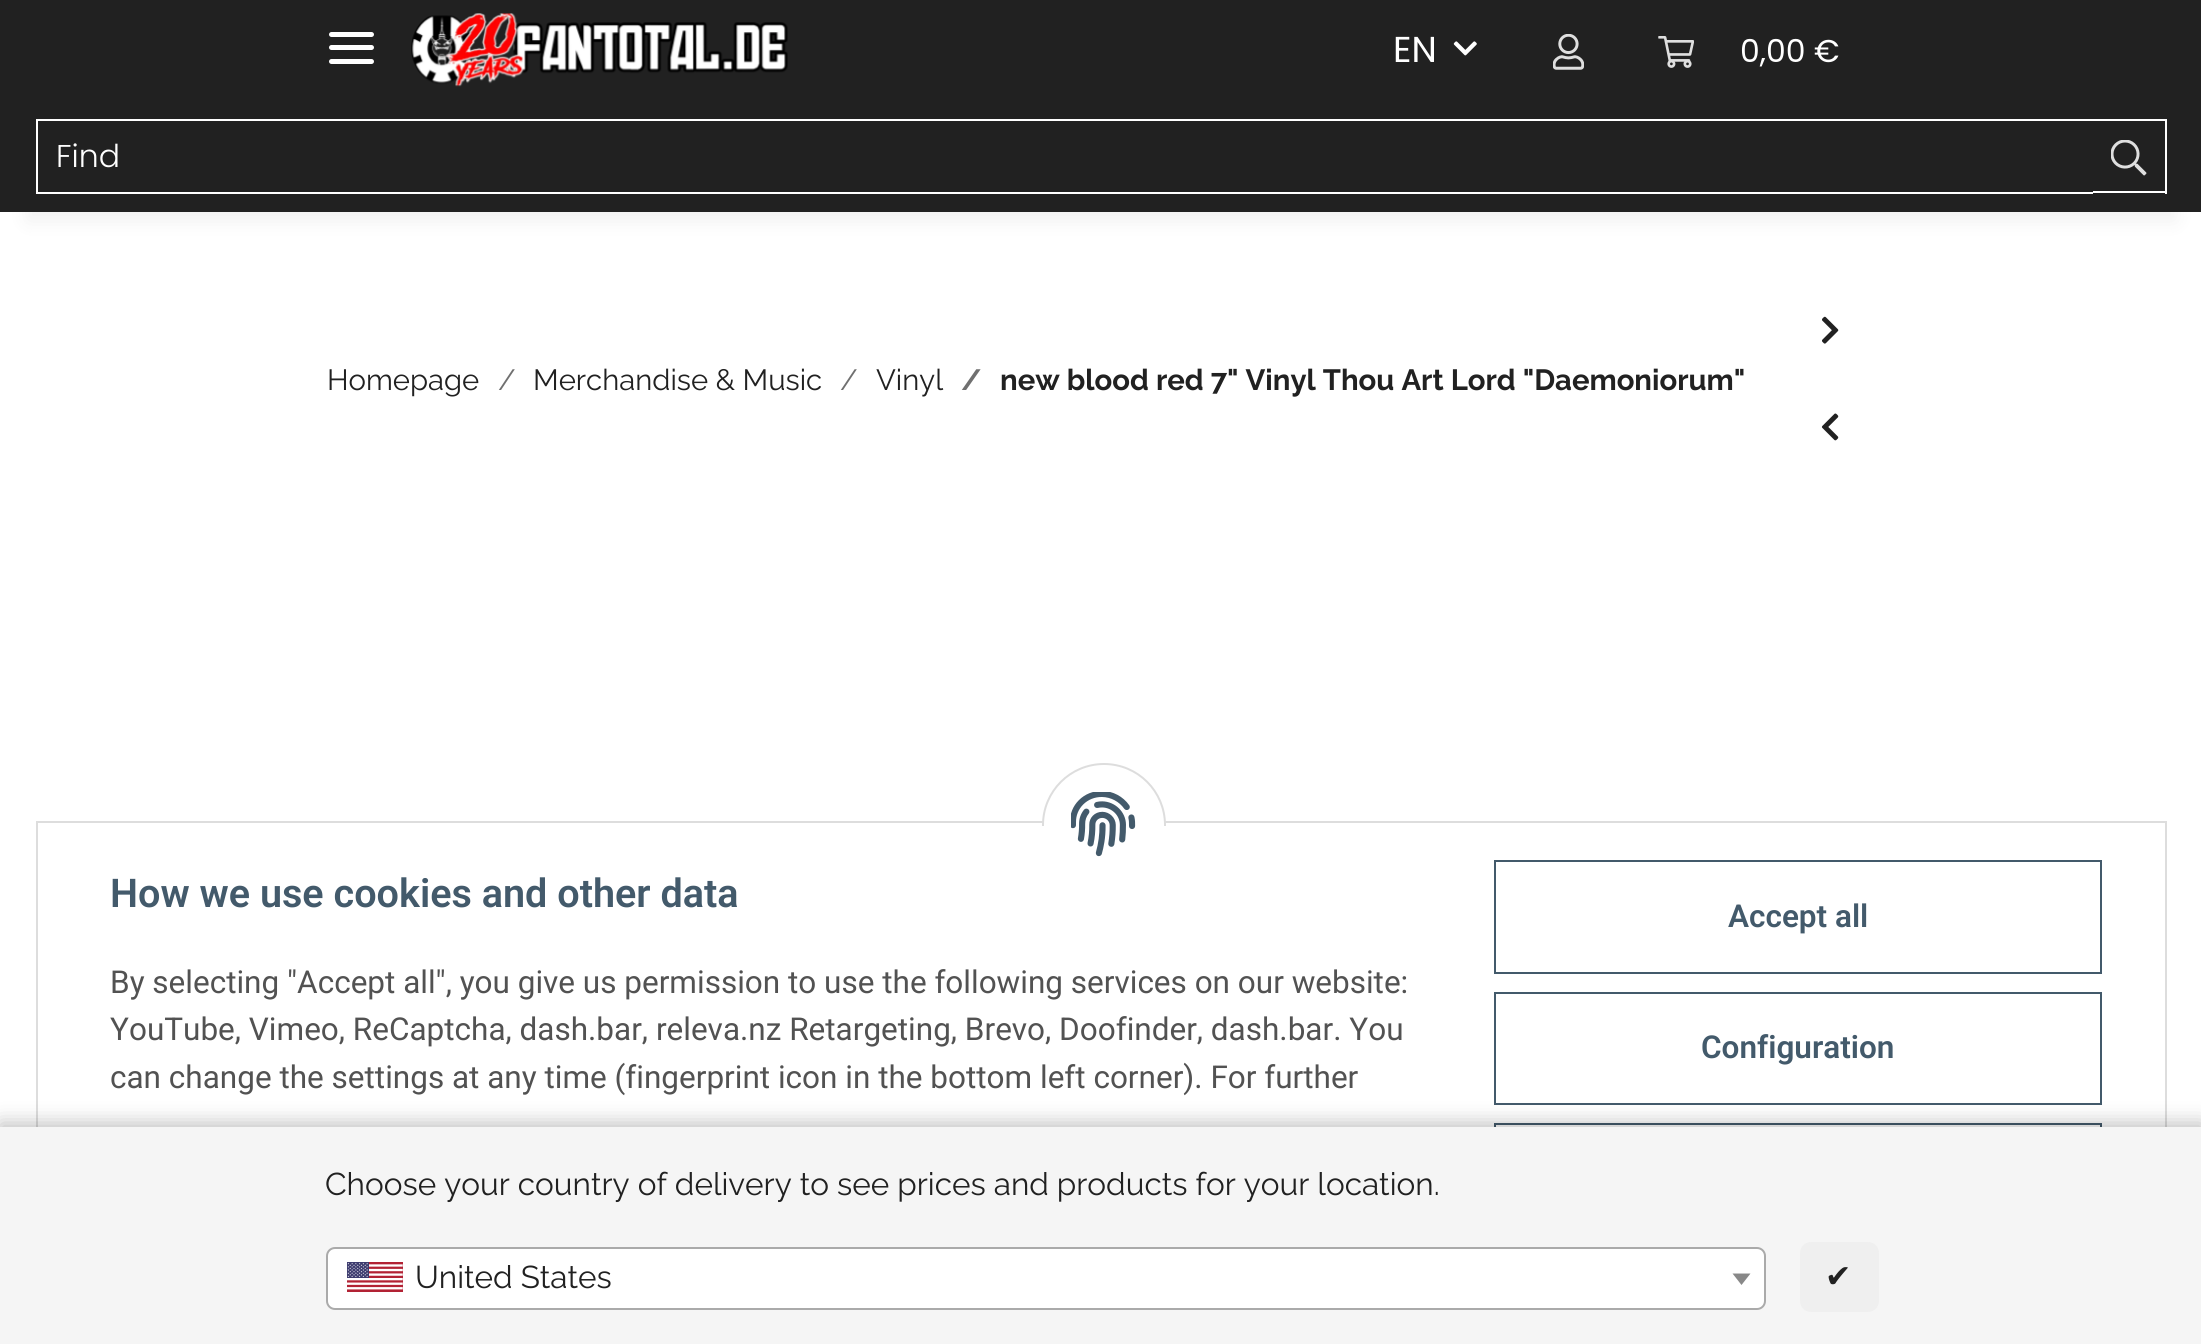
import math
import cairo

surface = cairo.ImageSurface(cairo.Format.RGB24, 2201, 1344)
ctx = cairo.Context(surface)
options = cairo.FontOptions()
options.set_hint_metrics(cairo.HintMetrics.OFF)
options.set_hint_style(cairo.HintStyle.NONE)
ctx.set_font_options(options)
ctx.set_miter_limit(4)


def ink(r, g, b):
    ctx.set_source_rgb(r / 255, g / 255, b / 255)


def write(x, y, s, family, size, color, bold=False, italic=False):
    ctx.select_font_face(family, cairo.FontSlant.ITALIC if italic else cairo.FontSlant.NORMAL, cairo.FontWeight.BOLD if bold else cairo.FontWeight.NORMAL)
    ctx.set_font_size(size)
    ink(*color)
    ctx.move_to(x, y)
    ctx.show_text(s)


def block(x, y, w, h, *color):
    ink(*color)
    ctx.rectangle(x, y, w, h)
    ctx.fill()


def round_path(x, y, w, h, r):
    ctx.new_sub_path()
    for i, (u, v) in enumerate([(x + w - r, y + h - r), (x + r, y + h - r), (x + r, y + r), (x + w - r, y + r)]):
        ctx.arc(u, v, r, i * math.pi / 2, (i + 1) * math.pi / 2)
    ctx.close_path()


def blur_box(x, y, w, h, r, blur, alpha):
    ctx.push_group_with_content(cairo.Content.ALPHA)
    ctx.set_operator(cairo.Operator.SOURCE)
    for i in range(15, -16, -2):
        e = blur * i / 6
        if min(w, h) + 2 * e > 0:
            ctx.set_source_rgba(0, 0, 0, alpha * math.erfc((i - 1) / 8.5) / 2)
            round_path(x - e, y - e, w + 2 * e, h + 2 * e, max(0, min(r + e + blur * .6, min(w, h) / 2 + e)))
            ctx.fill()
    ctx.mask(ctx.pop_group())


def paste(path, x, y, w, h):
    ctx.save()
    ctx.set_source_surface(cairo.ImageSurface.create_from_png(path), x, y)
    ctx.rectangle(x, y, w, h)
    ctx.fill()
    ctx.restore()


s1 = dict(family="Poppins", size=36, color=(255, 255, 255))
s2 = dict(family="Poppins", size=31.5, color=(255, 255, 255))
s3 = dict(family="Poppins Light", size=31.5, color=(255, 255, 255))
s4 = dict(family="Raleway", size=29.25, color=(33, 33, 33))
s5 = dict(family="Raleway", size=29.25, color=(112, 112, 112))
s6 = dict(family="Raleway", size=29.25, color=(112, 112, 112), bold=True)
s7 = dict(family="Raleway", size=29.25, color=(33, 33, 33), bold=True)
s8 = dict(family="Roboto SemiBold", size=39.6, color=(67, 90, 107))
s9 = dict(family="Roboto", size=31.5, color=(82, 82, 82))
s10 = dict(family="Roboto SemiBold", size=31.5, color=(67, 90, 107))
s11 = dict(family="Raleway", size=31.5, color=(33, 33, 33))
s12 = dict(family="DejaVu Sans", size=31.5, color=(33, 33, 33))

ink(255, 255, 255)
ctx.paint()
ink(0, 0, 0)
blur_box(27, 63, 2149, 158, 0, 10, 0.06)
block(0, 0, 2201, 212, 33, 33, 33)
ink(255, 255, 255)
round_path(329, 45, 45, 5, 2.5)
ctx.fill()
round_path(329, 32, 45, 5, 2.5)
ctx.fill()
round_path(329, 59, 45, 5, 2.5)
ctx.fill()
paste("pic1.png", 411, 13, 377, 74)
write(1393, 62, "EN", **s1)
paste("pic2.png", 1453, 41, 24, 15)
paste("pic3.png", 1553, 34, 31, 36)
paste("pic4.png", 1658, 36, 36, 32)
write(1740, 62, "0,00 €", **s2)
ctx.rectangle(37, 120, 2057, 73)
ctx.stroke()
write(56, 167, "Find", **s3)
block(2093, 121, 2, 73, 33, 33, 33)
block(2093, 119, 74, 2, 255, 255, 255)
block(2165, 119, 2, 75, 255, 255, 255)
block(2093, 191, 74, 2, 255, 255, 255)
paste("pic5.png", 2111, 140, 36, 36)
write(327, 390, "Homepage", **s4)
write(498, 390, "/", **s5)
write(533, 390, "Merchandise & Music", **s4)
write(840, 390, "/", **s5)
write(876, 390, "Vinyl", **s4)
write(961, 390, "/", **s6)
write(1000, 390, "new blood red 7\" Vinyl Thou Art Lord \"Daemoniorum\"", **s7)
paste("pic6.png", 1822, 316, 17, 28)
paste("pic7.png", 1821, 413, 18, 28)
ctx.rectangle(37, 822, 2129, 451)
ink(221, 221, 221)
ctx.stroke()
ink(255, 255, 255)
ctx.arc(1104, 825, 61, 0, 2 * math.pi)
ctx.fill_preserve()
ink(221, 221, 221)
ctx.stroke()
block(1042, 826, 124, 61, 255, 255, 255)
paste("pic8.png", 1071, 792, 65, 65)
write(110, 907, "How we use cookies and other data", **s8)
write(110, 993, "By selecting \"Accept all\", you give us permission to use the following services on our website:", **s9)
write(110, 1040, "YouTube, Vimeo, ReCaptcha, dash.bar, releva.nz Retargeting, Brevo, Doofinder, dash.bar. You", **s9)
write(110, 1088, "can change the settings at any time (fingerprint icon in the bottom left corner). For further", **s9)
ctx.rectangle(1495, 861, 606, 112)
ink(67, 90, 107)
ctx.stroke()
write(1728, 927, "Accept all", **s10)
ctx.rectangle(1495, 993, 606, 111)
ctx.stroke()
write(1701, 1058, "Configuration", **s10)
ctx.rectangle(1495, 1124, 606, 110)
ctx.stroke()
ink(0, 0, 0)
blur_box(0, 1123, 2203, 218, 0, 10, 0.25)
block(0, 1127, 2201, 217, 245, 245, 245)
write(325, 1195, "Choose your country of delivery to see prices and products for your location.", **s11)
ink(255, 255, 255)
round_path(327, 1248, 1438, 61, 8)
ctx.fill_preserve()
ink(170, 170, 170)
ctx.stroke()
paste("pic9.png", 347, 1262, 56, 30)
write(415, 1288, "United States", **s11)
ink(136, 136, 136)
ctx.new_path()
ctx.move_to(1732.5, 1273.5)
ctx.line_to(1750.5, 1273.5)
ctx.line_to(1741.5, 1285)
ctx.close_path()
ctx.fill()
ink(239, 239, 239)
round_path(1800, 1242, 79, 70, 11)
ctx.fill()
write(1825, 1287, "✔", **s12)
surface.write_to_png("screenshot.png")
